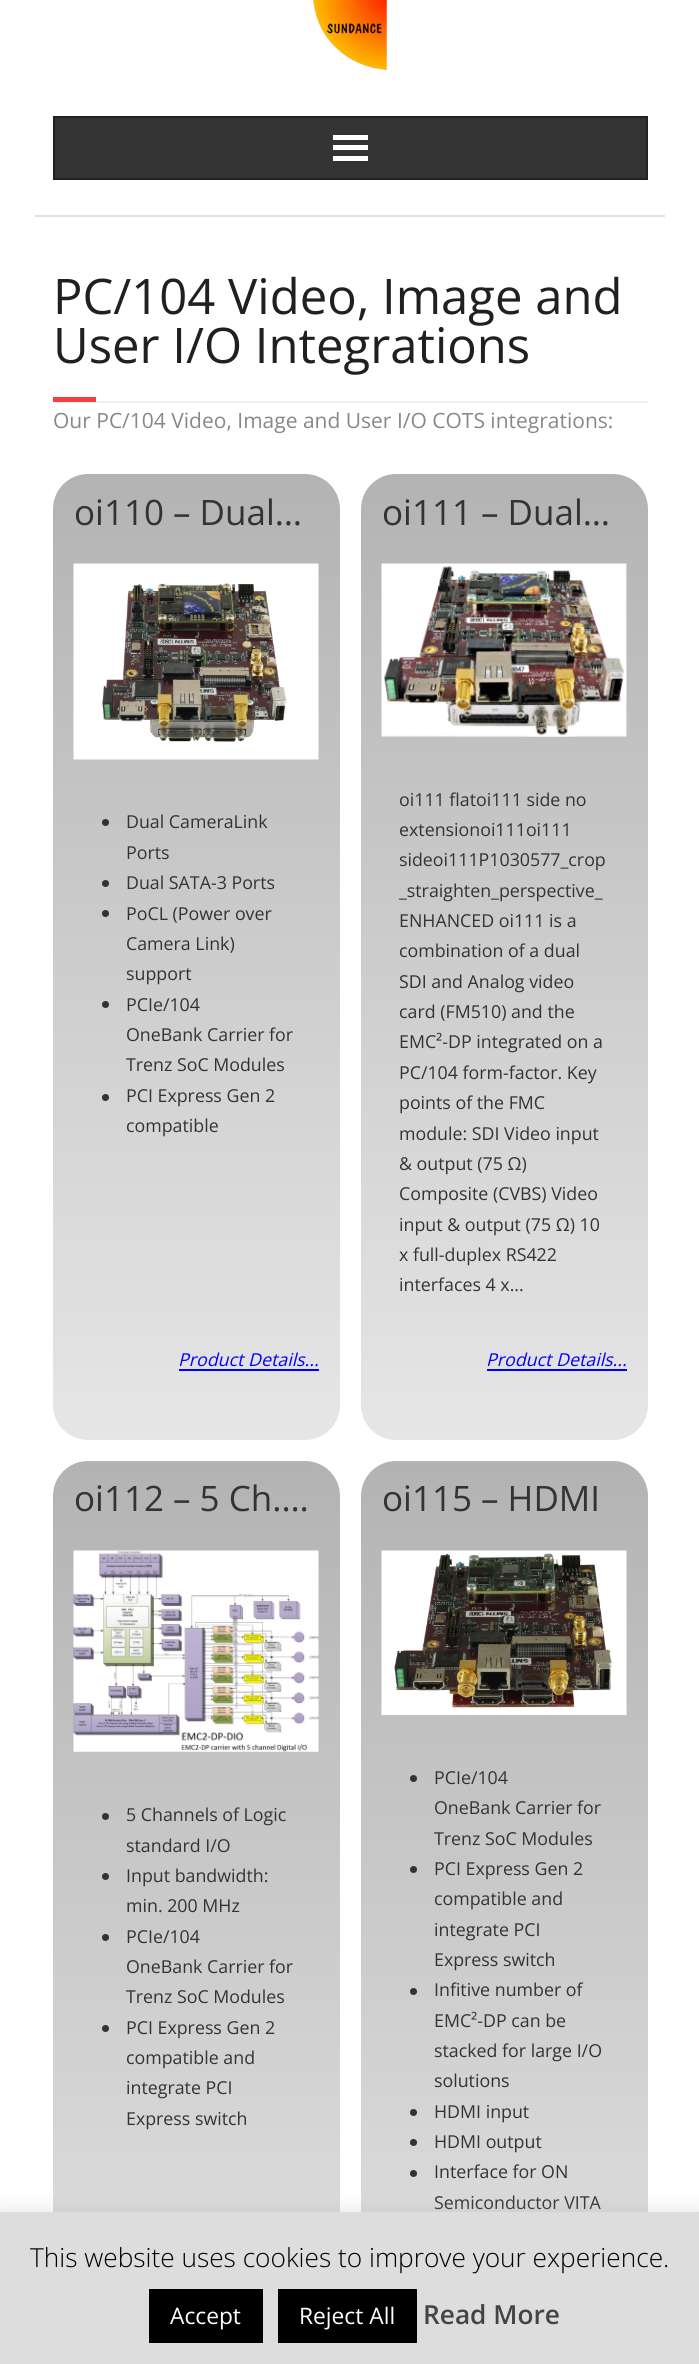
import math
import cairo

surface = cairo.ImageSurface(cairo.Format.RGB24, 699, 2364)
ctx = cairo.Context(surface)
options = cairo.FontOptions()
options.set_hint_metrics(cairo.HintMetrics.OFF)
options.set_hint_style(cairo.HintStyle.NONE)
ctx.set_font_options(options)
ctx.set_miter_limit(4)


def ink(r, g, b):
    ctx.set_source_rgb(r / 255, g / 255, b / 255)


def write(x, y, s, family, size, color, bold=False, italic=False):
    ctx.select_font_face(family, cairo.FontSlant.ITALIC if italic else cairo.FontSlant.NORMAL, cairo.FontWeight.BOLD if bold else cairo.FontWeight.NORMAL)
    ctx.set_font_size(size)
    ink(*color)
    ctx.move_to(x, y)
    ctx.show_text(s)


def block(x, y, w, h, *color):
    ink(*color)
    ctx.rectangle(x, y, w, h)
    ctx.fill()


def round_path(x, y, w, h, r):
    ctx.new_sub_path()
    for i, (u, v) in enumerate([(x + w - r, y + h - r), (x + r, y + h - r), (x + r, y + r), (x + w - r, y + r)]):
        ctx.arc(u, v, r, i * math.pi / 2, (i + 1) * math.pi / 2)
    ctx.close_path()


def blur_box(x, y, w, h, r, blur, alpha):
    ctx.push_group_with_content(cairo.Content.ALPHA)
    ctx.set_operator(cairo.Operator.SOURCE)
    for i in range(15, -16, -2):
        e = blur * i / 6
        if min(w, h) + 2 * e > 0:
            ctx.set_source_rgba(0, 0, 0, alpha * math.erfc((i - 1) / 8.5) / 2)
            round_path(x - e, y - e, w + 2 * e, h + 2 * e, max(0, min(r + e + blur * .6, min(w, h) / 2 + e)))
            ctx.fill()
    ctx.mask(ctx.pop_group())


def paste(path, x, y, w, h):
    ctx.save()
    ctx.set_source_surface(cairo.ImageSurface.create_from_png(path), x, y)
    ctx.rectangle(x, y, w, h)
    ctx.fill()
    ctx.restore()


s1 = dict(family="Open Sans", size=49, color=(32, 32, 32))
s2 = dict(family="Open Sans", size=21, color=(136, 136, 136))
s3 = dict(family="Open Sans", size=35, color=(51, 51, 51))
s4 = dict(family="Open Sans", size=17.8, color=(51, 51, 51))
s5 = dict(family="Open Sans", size=17.8, color=(0, 0, 255), italic=True)
s6 = dict(family="Open Sans Light", size=26.25, color=(0, 0, 0))
s7 = dict(family="Open Sans", size=22.75, color=(255, 255, 255))
s8 = dict(family="Open Sans SemiBold", size=26.25, color=(68, 68, 68))

ink(255, 255, 255)
ctx.paint()
paste("pic1.png", 313, 0, 74, 70)
block(35, 215, 630, 2, 224, 224, 224)
ink(51, 51, 51)
ctx.rectangle(54, 117, 593, 62)
ctx.fill_preserve()
ink(34, 34, 34)
ctx.stroke()
block(333, 135, 35, 5, 255, 255, 255)
block(333, 145, 35, 5, 255, 255, 255)
block(333, 156, 35, 5, 255, 255, 255)
write(53, 314, "PC/104 Video, Image and", **s1)
write(53, 363, "User I/O Integrations", **s1)
block(53, 401, 595, 2, 238, 238, 238)
block(53, 397, 43, 5, 243, 63, 63)
write(53, 428, "Our PC/104 Video, Image and User I/O COTS integrations:", **s2)
gradient = cairo.LinearGradient(196, 474, 196, 1440)
gradient.add_color_stop_rgba(0, 0.702, 0.702, 0.702, 1)
gradient.add_color_stop_rgba(1, 0.902, 0.902, 0.902, 1)
ctx.set_source(gradient)
round_path(53, 474, 287, 966, 35)
ctx.fill()
write(74, 525, "oi110 – Dual…", **s3)
paste("pic2.png", 73, 563, 246, 197)
ctx.arc(105.5, 822.5, 3.5, 0, 2 * math.pi)
ctx.fill()
write(126, 828, "Dual CameraLink", **s4)
write(126, 859, "Ports", **s4)
ctx.new_path()
ctx.arc(105.5, 883.5, 3.5, 0, 2 * math.pi)
ctx.fill()
write(126, 889, "Dual SATA-3 Ports", **s4)
ctx.new_path()
ctx.arc(105.5, 913.5, 3.5, 0, 2 * math.pi)
ctx.fill()
write(126, 920, "PoCL (Power over", **s4)
write(126, 950, "Camera Link)", **s4)
write(126, 980, "support", **s4)
ctx.new_path()
ctx.arc(105.5, 1004.5, 3.5, 0, 2 * math.pi)
ctx.fill()
write(126, 1011, "PCIe/104", **s4)
write(126, 1041, "OneBank Carrier for", **s4)
write(126, 1071, "Trenz SoC Modules", **s4)
ctx.new_path()
ctx.arc(105.5, 1097.5, 3.5, 0, 2 * math.pi)
ctx.fill()
write(126, 1102, "PCI Express Gen 2", **s4)
write(126, 1132, "compatible", **s4)
write(178, 1366, "Product Details...", **s5)
block(179, 1369, 140, 2, 0, 0, 255)
gradient = cairo.LinearGradient(504, 474, 504, 1440)
gradient.add_color_stop_rgba(0, 0.702, 0.702, 0.702, 1)
gradient.add_color_stop_rgba(1, 0.902, 0.902, 0.902, 1)
ctx.set_source(gradient)
round_path(361, 474, 287, 966, 35)
ctx.fill()
write(382, 525, "oi111 – Dual…", **s3)
paste("pic3.png", 381, 563, 246, 174)
write(399, 806, "oi111 flatoi111 side no", **s4)
write(399, 836, "extensionoi111oi111", **s4)
write(399, 866, "sideoi111P1030577_crop", **s4)
write(399, 897, "_straighten_perspective_", **s4)
write(399, 927, "ENHANCED oi111 is a", **s4)
write(399, 957, "combination of a dual", **s4)
write(399, 988, "SDI and Analog video", **s4)
write(399, 1018, "card (FM510) and the", **s4)
write(399, 1048, "EMC²-DP integrated on a", **s4)
write(399, 1079, "PC/104 form-factor. Key", **s4)
write(399, 1109, "points of the FMC", **s4)
write(399, 1140, "module: SDI Video input", **s4)
write(399, 1170, "& output (75 Ω)", **s4)
write(399, 1200, "Composite (CVBS) Video", **s4)
write(399, 1231, "input & output (75 Ω) 10", **s4)
write(399, 1261, "x full-duplex RS422", **s4)
write(399, 1291, "interfaces 4 x...", **s4)
write(486, 1366, "Product Details...", **s5)
block(487, 1369, 140, 2, 0, 0, 255)
gradient = cairo.LinearGradient(196, 1461, 196, 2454)
gradient.add_color_stop_rgba(0, 0.702, 0.702, 0.702, 1)
gradient.add_color_stop_rgba(1, 0.902, 0.902, 0.902, 1)
ctx.set_source(gradient)
round_path(53, 1461, 287, 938, 35)
ctx.fill()
write(74, 1511, "oi112 – 5 Ch.…", **s3)
paste("pic4.png", 73, 1550, 246, 202)
ctx.arc(105.5, 1816.5, 3.5, 0, 2 * math.pi)
ctx.fill()
write(126, 1821, "5 Channels of Logic", **s4)
write(126, 1852, "standard I/O", **s4)
ctx.new_path()
ctx.arc(105.5, 1876.5, 3.5, 0, 2 * math.pi)
ctx.fill()
write(126, 1882, "Input bandwidth:", **s4)
write(126, 1912, "min. 200 MHz", **s4)
ctx.new_path()
ctx.arc(105.5, 1937.5, 3.5, 0, 2 * math.pi)
ctx.fill()
write(126, 1943, "PCIe/104", **s4)
write(126, 1973, "OneBank Carrier for", **s4)
write(126, 2003, "Trenz SoC Modules", **s4)
ctx.new_path()
ctx.arc(105.5, 2028.5, 3.5, 0, 2 * math.pi)
ctx.fill()
write(126, 2034, "PCI Express Gen 2", **s4)
write(126, 2064, "compatible and", **s4)
write(126, 2094, "integrate PCI", **s4)
write(126, 2125, "Express switch", **s4)
gradient = cairo.LinearGradient(504, 1461, 504, 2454)
gradient.add_color_stop_rgba(0, 0.702, 0.702, 0.702, 1)
gradient.add_color_stop_rgba(1, 0.902, 0.902, 0.902, 1)
ctx.set_source(gradient)
round_path(361, 1461, 287, 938, 35)
ctx.fill()
write(382, 1511, "oi115 – HDMI", **s3)
paste("pic5.png", 381, 1550, 246, 165)
ctx.arc(413.5, 1778.5, 3.5, 0, 2 * math.pi)
ctx.fill()
write(434, 1784, "PCIe/104", **s4)
write(434, 1814, "OneBank Carrier for", **s4)
write(434, 1845, "Trenz SoC Modules", **s4)
ctx.new_path()
ctx.arc(413.5, 1869.5, 3.5, 0, 2 * math.pi)
ctx.fill()
write(434, 1875, "PCI Express Gen 2", **s4)
write(434, 1905, "compatible and", **s4)
write(434, 1936, "integrate PCI", **s4)
write(434, 1966, "Express switch", **s4)
ctx.new_path()
ctx.arc(413.5, 1991.5, 3.5, 0, 2 * math.pi)
ctx.fill()
write(434, 1996, "Infitive number of", **s4)
write(434, 2027, "EMC²-DP can be", **s4)
write(434, 2057, "stacked for large I/O", **s4)
write(434, 2087, "solutions", **s4)
ctx.new_path()
ctx.arc(413.5, 2112.5, 3.5, 0, 2 * math.pi)
ctx.fill()
write(434, 2118, "HDMI input", **s4)
ctx.new_path()
ctx.arc(413.5, 2142.5, 3.5, 0, 2 * math.pi)
ctx.fill()
write(434, 2148, "HDMI output", **s4)
ctx.new_path()
ctx.arc(413.5, 2173.5, 3.5, 0, 2 * math.pi)
ctx.fill()
write(434, 2178, "Interface for ON", **s4)
write(434, 2209, "Semiconductor VITA", **s4)
ink(172, 171, 171)
blur_box(0, 2210, 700, 153, 0, 9, 0.3)
block(0, 2212, 699, 152, 221, 221, 221)
write(30, 2267, "This website uses cookies to improve your experience.", **s6)
block(149, 2289, 114, 54, 0, 0, 0)
write(170, 2324, "Accept", **s7)
block(278, 2289, 139, 54, 0, 0, 0)
write(299, 2324, "Reject All", **s7)
write(423, 2324, "Read More", **s8)
surface.write_to_png("screenshot.png")
